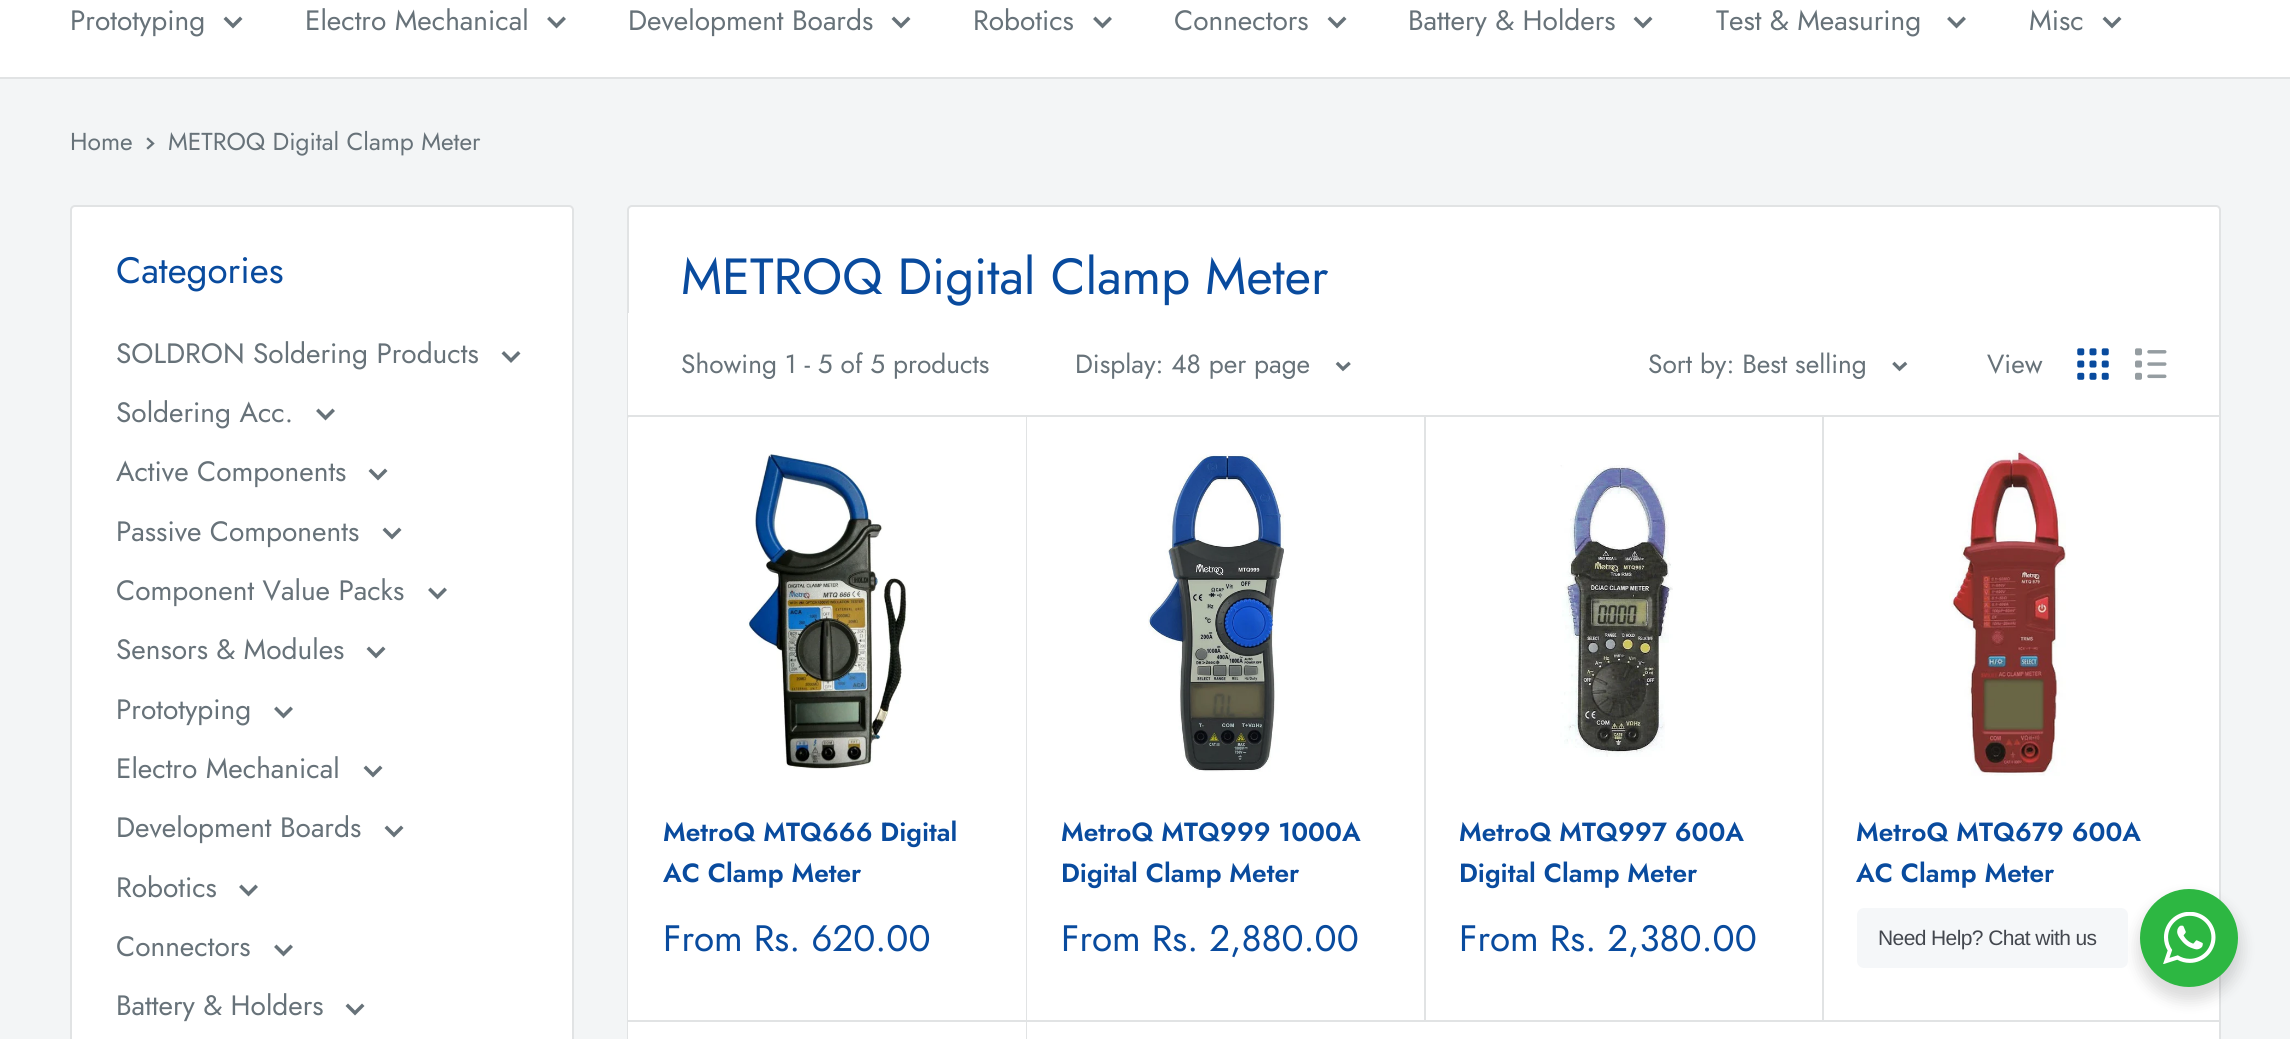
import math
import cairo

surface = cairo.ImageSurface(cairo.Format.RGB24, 2290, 1039)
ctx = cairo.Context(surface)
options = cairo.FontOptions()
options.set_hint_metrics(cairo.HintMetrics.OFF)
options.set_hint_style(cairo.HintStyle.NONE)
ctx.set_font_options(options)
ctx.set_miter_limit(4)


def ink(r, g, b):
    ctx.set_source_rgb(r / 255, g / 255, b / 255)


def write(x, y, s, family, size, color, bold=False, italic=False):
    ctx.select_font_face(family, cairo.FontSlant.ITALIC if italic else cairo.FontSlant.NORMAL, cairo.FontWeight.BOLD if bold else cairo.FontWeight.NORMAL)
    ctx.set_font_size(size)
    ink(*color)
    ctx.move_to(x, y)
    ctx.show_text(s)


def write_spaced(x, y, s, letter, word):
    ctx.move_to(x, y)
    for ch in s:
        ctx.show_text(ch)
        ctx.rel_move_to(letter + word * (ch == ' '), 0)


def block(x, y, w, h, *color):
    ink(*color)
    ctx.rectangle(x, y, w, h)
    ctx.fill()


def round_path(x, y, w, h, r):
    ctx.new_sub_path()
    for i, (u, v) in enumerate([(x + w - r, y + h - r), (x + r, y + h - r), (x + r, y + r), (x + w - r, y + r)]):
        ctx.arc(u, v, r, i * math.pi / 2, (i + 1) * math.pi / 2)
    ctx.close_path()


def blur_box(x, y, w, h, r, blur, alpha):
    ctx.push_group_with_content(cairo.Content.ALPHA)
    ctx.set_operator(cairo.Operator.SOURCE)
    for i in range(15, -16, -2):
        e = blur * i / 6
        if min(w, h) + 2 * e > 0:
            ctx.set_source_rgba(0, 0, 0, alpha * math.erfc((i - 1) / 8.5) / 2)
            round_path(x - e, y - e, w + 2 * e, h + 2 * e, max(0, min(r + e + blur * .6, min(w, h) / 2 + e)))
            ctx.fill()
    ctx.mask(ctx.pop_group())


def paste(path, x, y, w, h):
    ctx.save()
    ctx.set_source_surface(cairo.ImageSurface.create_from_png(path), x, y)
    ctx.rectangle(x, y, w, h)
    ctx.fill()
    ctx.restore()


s1 = dict(family="Jost", size=28, color=(103, 114, 121))
s2 = dict(family="Jost", size=24.5, color=(103, 114, 121))
s3 = dict(family="Jost", size=36.75, color=(9, 75, 158))
s4 = dict(family="Jost", size=50.75, color=(9, 75, 158))
s5 = dict(family="Jost SemiBold", size=26.25, color=(9, 75, 158))
s6 = dict(family="Jost", size=26.25, color=(103, 114, 121))

ink(243, 245, 246)
ctx.paint()
block(0, 0, 2290, 77, 255, 255, 255)
block(0, 77, 2290, 2, 225, 227, 228)
write(70, 30, "Prototyping", **s1)
ctx.new_path()
ctx.move_to(240, 19)
ctx.line_to(233, 26)
ctx.line_to(226, 19)
ctx.set_line_width(3.5)
ctx.set_line_cap(cairo.LineCap.SQUARE)
ctx.stroke()
write(305, 30, "Electro Mechanical", **s1)
ctx.new_path()
ctx.move_to(563.5, 19)
ctx.line_to(556.5, 26)
ctx.line_to(549.5, 19)
ctx.stroke()
write(628, 30, "Development Boards", **s1)
ctx.new_path()
ctx.move_to(908, 19)
ctx.line_to(901, 26)
ctx.line_to(894, 19)
ctx.stroke()
write(973, 30, "Robotics", **s1)
ctx.new_path()
ctx.move_to(1109.5, 19)
ctx.line_to(1102.5, 26)
ctx.line_to(1095.5, 19)
ctx.stroke()
write(1174, 30, "Connectors", **s1)
ctx.new_path()
ctx.move_to(1344, 19)
ctx.line_to(1337, 26)
ctx.line_to(1330, 19)
ctx.stroke()
write(1408, 30, "Battery & Holders", **s1)
ctx.new_path()
ctx.move_to(1650, 19)
ctx.line_to(1643, 26)
ctx.line_to(1636, 19)
ctx.stroke()
write(1716, 30, "Test & Measuring", **s1)
ctx.new_path()
ctx.move_to(1963.5, 19)
ctx.line_to(1956.5, 26)
ctx.line_to(1949.5, 19)
ctx.stroke()
write(2029, 30, "Misc", **s1)
ctx.new_path()
ctx.move_to(2119, 19)
ctx.line_to(2112, 26)
ctx.line_to(2105, 19)
ctx.stroke()
write(70, 150, "Home", **s2)
ctx.new_path()
ctx.move_to(148, 139)
ctx.line_to(153, 143.5)
ctx.line_to(148, 148)
ctx.set_line_width(2.3)
ctx.stroke()
write(168, 150, "METROQ Digital Clamp Meter", **s2)
ink(255, 255, 255)
round_path(71, 206, 502, 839, 4)
ctx.fill_preserve()
ink(225, 227, 228)
ctx.set_line_width(2)
ctx.set_line_cap(cairo.LineCap.BUTT)
ctx.stroke()
write(116, 283, "Categories", **s3)
write(116, 363, "SOLDRON Soldering Products", **s1)
ctx.new_path()
ctx.move_to(518, 353.5)
ctx.line_to(511, 360.5)
ctx.line_to(504, 353.5)
ctx.set_line_width(3.5)
ctx.set_line_cap(cairo.LineCap.SQUARE)
ctx.stroke()
write(116, 422, "Soldering Acc.", **s1)
ctx.new_path()
ctx.move_to(332.5, 411)
ctx.line_to(325.5, 418)
ctx.line_to(318.5, 411)
ctx.stroke()
write(116, 481, "Active Components", **s1)
ctx.new_path()
ctx.move_to(385, 471)
ctx.line_to(378, 478)
ctx.line_to(371, 471)
ctx.stroke()
write(116, 541, "Passive Components", **s1)
ctx.new_path()
ctx.move_to(399, 530)
ctx.line_to(392, 537)
ctx.line_to(385, 530)
ctx.stroke()
write(116, 600, "Component Value Packs", **s1)
ctx.new_path()
ctx.move_to(444.5, 590)
ctx.line_to(437.5, 597)
ctx.line_to(430.5, 590)
ctx.stroke()
write(116, 659, "Sensors & Modules", **s1)
ctx.new_path()
ctx.move_to(383, 649)
ctx.line_to(376, 656)
ctx.line_to(369, 649)
ctx.stroke()
write(116, 719, "Prototyping", **s1)
ctx.new_path()
ctx.move_to(290.5, 709)
ctx.line_to(283.5, 716)
ctx.line_to(276.5, 709)
ctx.stroke()
write(116, 778, "Electro Mechanical", **s1)
ctx.new_path()
ctx.move_to(380, 768)
ctx.line_to(373, 775)
ctx.line_to(366, 768)
ctx.stroke()
write(116, 837, "Development Boards", **s1)
ctx.new_path()
ctx.move_to(401, 828)
ctx.line_to(394, 835)
ctx.line_to(387, 828)
ctx.stroke()
write(116, 897, "Robotics", **s1)
ctx.new_path()
ctx.move_to(255.5, 887)
ctx.line_to(248.5, 894)
ctx.line_to(241.5, 887)
ctx.stroke()
write(116, 956, "Connectors", **s1)
ctx.new_path()
ctx.move_to(290.5, 947)
ctx.line_to(283.5, 954)
ctx.line_to(276.5, 947)
ctx.stroke()
write(116, 1015, "Battery & Holders", **s1)
ctx.new_path()
ctx.move_to(362, 1006)
ctx.line_to(355, 1013)
ctx.line_to(348, 1006)
ctx.stroke()
ink(255, 255, 255)
round_path(628, 206, 1592, 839, 4)
ctx.fill_preserve()
ink(225, 227, 228)
ctx.set_line_width(2)
ctx.set_line_cap(cairo.LineCap.BUTT)
ctx.stroke()
write(681, 294, "METROQ Digital Clamp Meter", **s4)
ink(255, 255, 255)
round_path(628, 415, 1591, 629, 5)
ctx.fill()
ctx.new_path()
ctx.move_to(633, 415)
ctx.line_to(1026, 415)
ctx.line_to(1026, 1020)
ctx.line_to(628, 1020)
ctx.line_to(628, 420)
ctx.curve_to(628, 417, 630, 415, 633, 415)
ctx.close_path()
ctx.fill()
block(1026, 415, 1, 605, 225, 227, 228)
paste("pic4.png", 1148, 454, 136, 318)
write(1061, 841, "MetroQ MTQ999 1000A", **s5)
write(1061, 882, "Digital Clamp Meter", **s5)
write(1061, 951, "From Rs. 2,880.00", **s3)
ink(225, 227, 228)
ctx.new_path()
ctx.move_to(1026, 1020)
ctx.line_to(1026, 1022)
ctx.line_to(1425, 1022)
ctx.line_to(1425, 417)
ctx.line_to(1424, 417)
ctx.line_to(1424, 1020)
ctx.close_path()
ctx.fill()
block(1424, 415, 2, 605, 225, 227, 228)
block(1822, 415, 2, 605, 225, 227, 228)
ctx.new_path()
ctx.move_to(628, 315)
ctx.line_to(628, 417)
ctx.line_to(2219, 417)
ctx.line_to(2219, 415)
ctx.line_to(628, 415)
ctx.close_path()
ctx.fill()
block(628, 313, 1, 102, 255, 255, 255)
write(681, 373, "Showing 1 - 5 of 5 products", **s6)
write(1075, 373, "Display: 48 per page", **s6)
ctx.new_path()
ctx.move_to(1348.5, 364)
ctx.line_to(1343, 369)
ctx.line_to(1338, 364)
ctx.set_line_width(3.3)
ctx.set_line_cap(cairo.LineCap.SQUARE)
ctx.stroke()
write(1648, 373, "Sort by: Best selling", **s6)
ctx.new_path()
ctx.move_to(1905, 364)
ctx.line_to(1899.5, 369)
ctx.line_to(1894.5, 364)
ctx.stroke()
write(1987, 373, "View", **s6)
paste("pic1.png", 2077, 348, 32, 32)
paste("pic2.png", 2135, 348, 32, 32)
ink(225, 227, 228)
ctx.new_path()
ctx.move_to(628, 420)
ctx.line_to(628, 1022)
ctx.line_to(1026, 1022)
ctx.line_to(1026, 417)
ctx.line_to(1026, 1020)
ctx.line_to(628, 1020)
ctx.line_to(628, 418)
ctx.close_path()
ctx.fill()
paste("pic3.png", 747, 454, 161, 315)
write(663, 841, "MetroQ MTQ666 Digital", **s5)
write(663, 882, "AC Clamp Meter", **s5)
write(663, 951, "From Rs. 620.00", **s3)
ink(225, 227, 228)
ctx.new_path()
ctx.move_to(1425, 1020)
ctx.line_to(1425, 1022)
ctx.line_to(1822, 1022)
ctx.line_to(1822, 417)
ctx.line_to(1822, 1020)
ctx.close_path()
ctx.fill()
paste("pic5.png", 1560, 465, 113, 292)
write(1459, 841, "MetroQ MTQ997 600A", **s5)
write(1459, 882, "Digital Clamp Meter", **s5)
write(1459, 951, "From Rs. 2,380.00", **s3)
paste("pic6.png", 1949, 450, 117, 326)
write(1856, 841, "MetroQ MTQ679 600A", **s5)
write(1856, 882, "AC Clamp Meter", **s5)
block(1822, 1020, 397, 2, 225, 227, 228)
ctx.new_path()
ctx.move_to(630, 1020)
ctx.line_to(1027, 1020)
ctx.line_to(1027, 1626)
ctx.line_to(631, 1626)
ctx.line_to(1026, 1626)
ctx.line_to(1026, 1020)
ctx.close_path()
ctx.fill()
ink(0, 0, 0)
blur_box(2137, 896, 105, 105, 52.5, 7, 0.14)
ink(245, 247, 249)
round_path(1857, 908, 271, 60, 7)
ctx.fill()
ctx.select_font_face("Liberation Sans")
ctx.set_font_size(21)
ink(67, 71, 78)
write_spaced(1878, 945, "Need Help? Chat with us", -0.6, 0)
ink(45, 183, 66)
ctx.new_path()
ctx.arc(2189, 938, 49, 0, 2 * math.pi)
ctx.fill()
paste("pic7.png", 2163, 912, 53, 52)
surface.write_to_png("screenshot.png")
